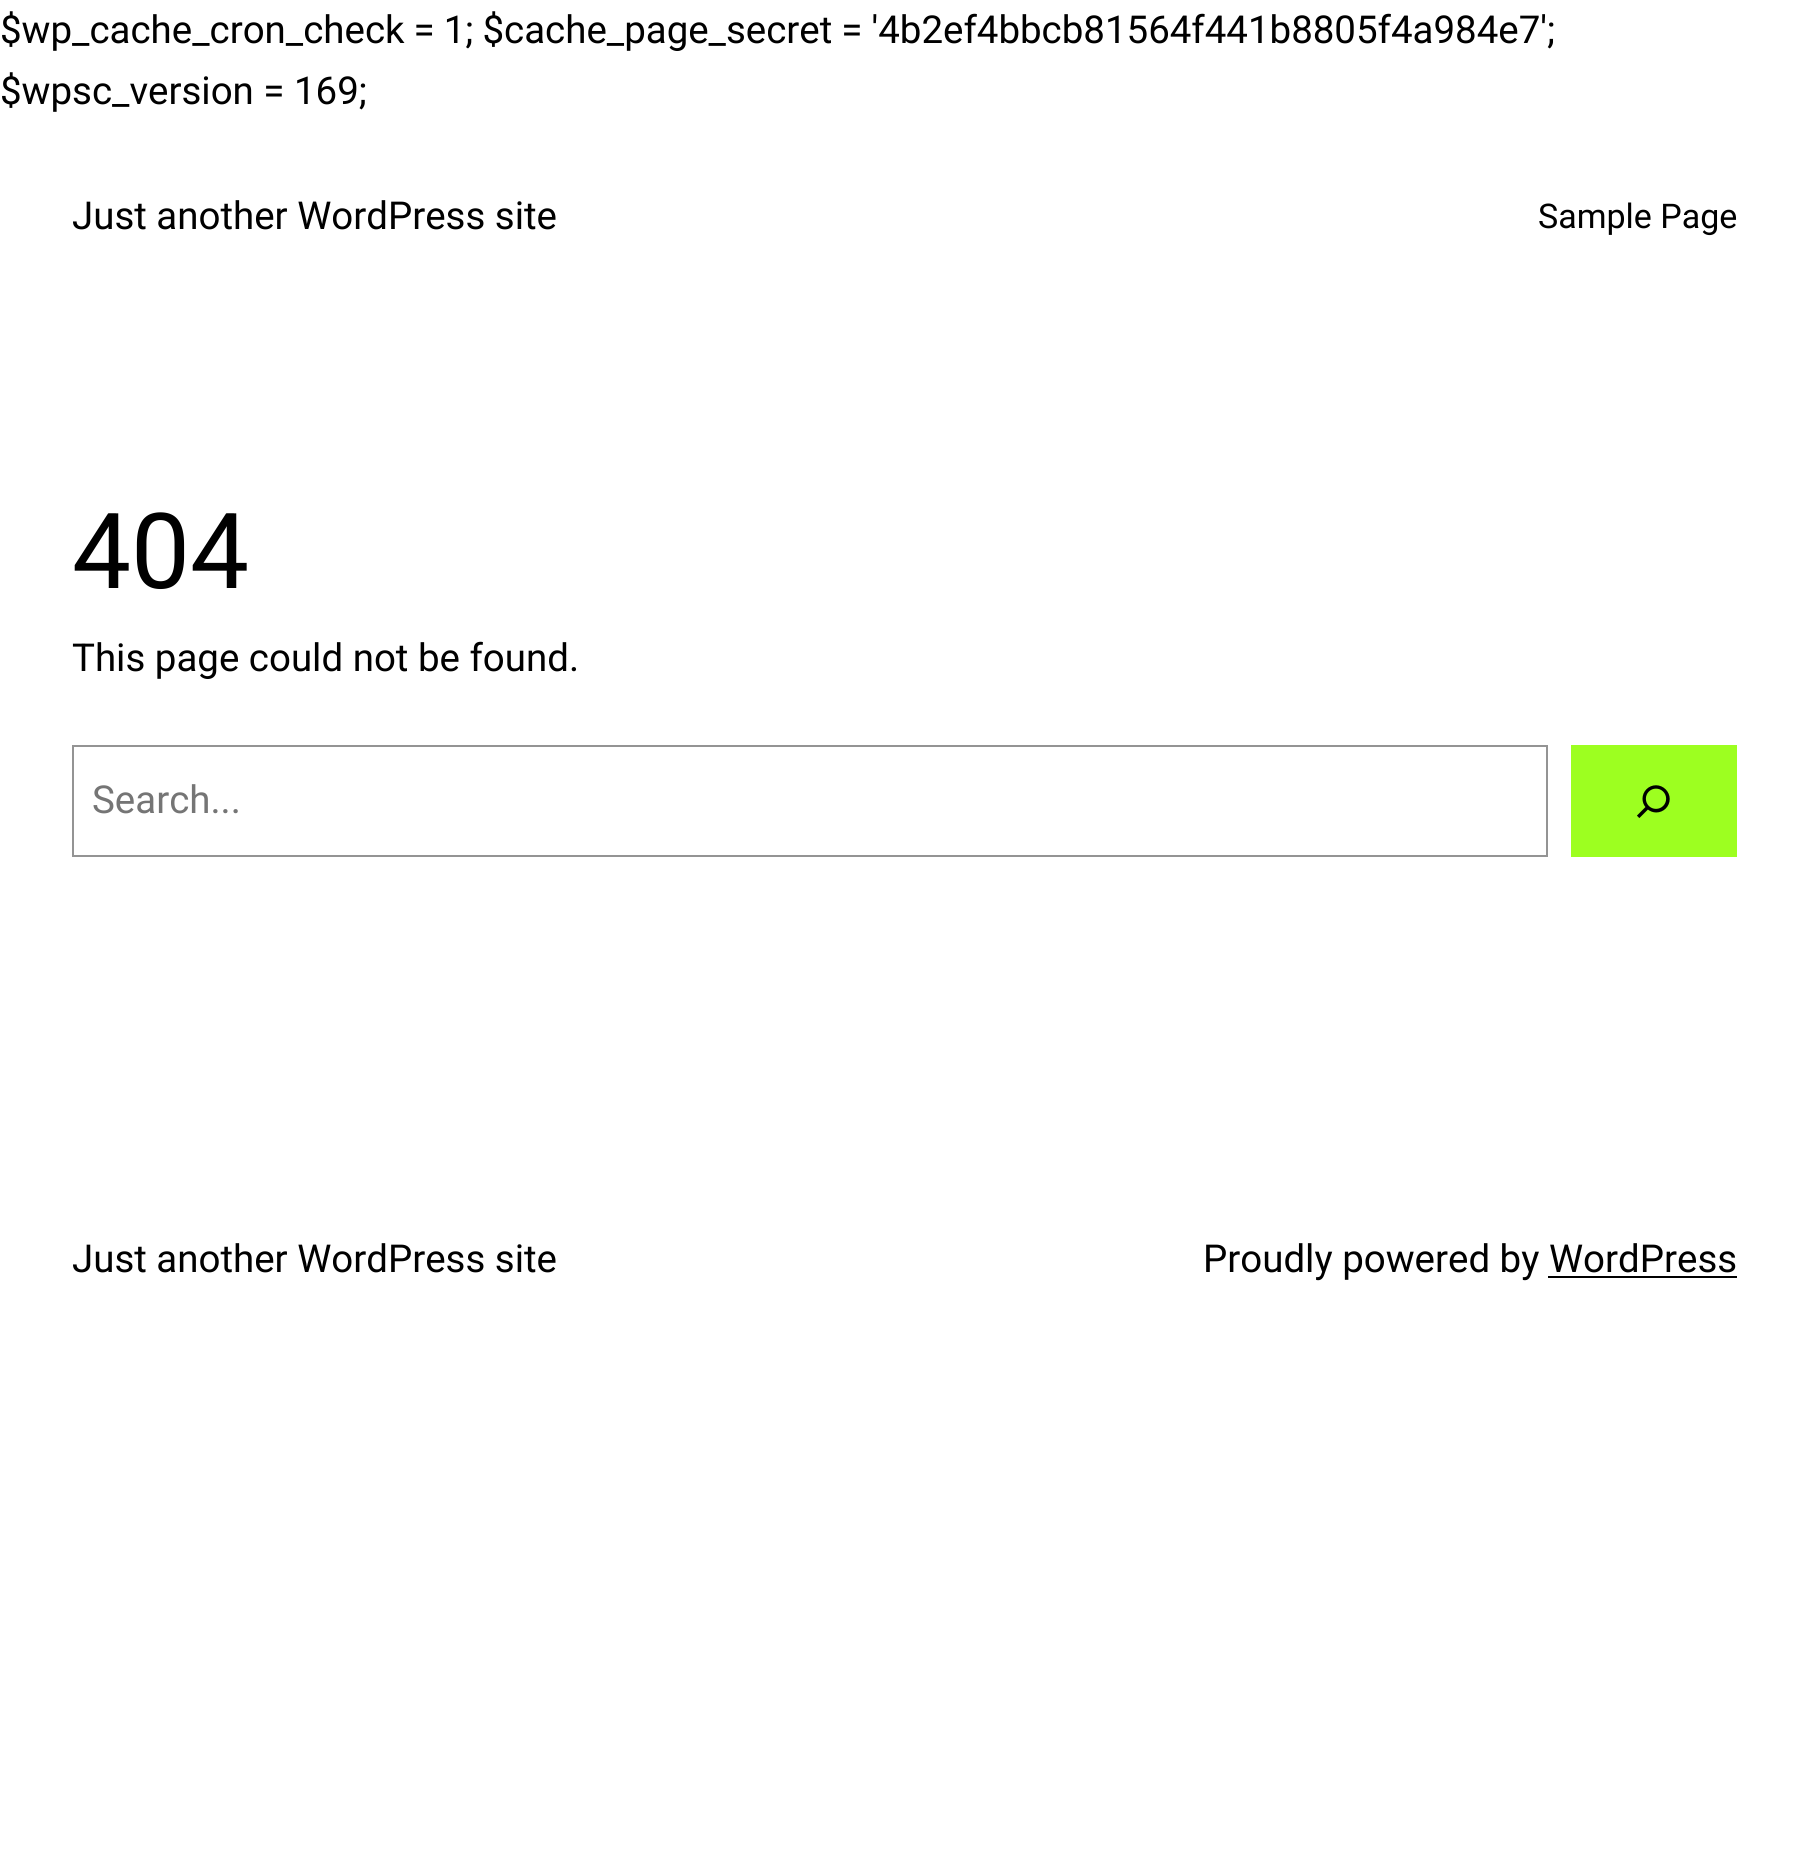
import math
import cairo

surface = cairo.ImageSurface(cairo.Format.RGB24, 1807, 1871)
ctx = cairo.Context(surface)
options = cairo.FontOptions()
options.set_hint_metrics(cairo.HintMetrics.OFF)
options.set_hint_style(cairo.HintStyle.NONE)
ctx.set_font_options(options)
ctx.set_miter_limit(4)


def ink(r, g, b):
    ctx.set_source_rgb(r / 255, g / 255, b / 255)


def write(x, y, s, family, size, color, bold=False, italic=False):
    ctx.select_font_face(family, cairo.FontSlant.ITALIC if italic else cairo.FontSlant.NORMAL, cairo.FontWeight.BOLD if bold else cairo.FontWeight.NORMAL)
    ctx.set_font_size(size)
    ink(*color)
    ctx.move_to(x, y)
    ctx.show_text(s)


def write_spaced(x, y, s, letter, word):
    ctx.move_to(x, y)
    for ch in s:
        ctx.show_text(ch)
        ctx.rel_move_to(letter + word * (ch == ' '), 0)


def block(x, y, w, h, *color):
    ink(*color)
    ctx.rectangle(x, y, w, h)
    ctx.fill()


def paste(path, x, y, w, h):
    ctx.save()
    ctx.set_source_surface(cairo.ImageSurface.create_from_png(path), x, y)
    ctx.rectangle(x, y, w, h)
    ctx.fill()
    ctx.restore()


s1 = dict(family="Roboto", size=38.45, color=(0, 0, 0))
s2 = dict(family="Roboto", size=34, color=(0, 0, 0))
s3 = dict(family="Roboto", size=105, color=(0, 0, 0))
s4 = dict(family="Roboto", size=38.45, color=(117, 117, 117))

ink(255, 255, 255)
ctx.paint()
ctx.select_font_face("Roboto")
ctx.set_font_size(38.45)
ink(0, 0, 0)
write_spaced(0, 43, "$wp_cache_cron_check = 1; $cache_page_secret = '4b2ef4bbcb81564f441b8805f4a984e7';", 0, -0.5)
write(0, 104, "$wpsc_version = 169;", **s1)
write(72, 229, "Just another WordPress site", **s1)
write(1538, 228, "Sample Page", **s2)
write(72, 588, "404", **s3)
write(72, 671, "This page could not be found.", **s1)
ctx.rectangle(73, 746, 1474, 110)
ink(148, 148, 148)
ctx.stroke()
write(92, 813, "Search...", **s4)
block(1571, 745, 166, 112, 157, 255, 32)
paste("pic1.png", 1637, 785, 33, 33)
write(72, 1272, "Just another WordPress site", **s1)
write(1203, 1272, "Proudly powered by", **s1)
write(1549, 1272, "WordPress", **s1)
block(1548, 1276, 189, 2, 0, 0, 0)
surface.write_to_png("screenshot.png")
